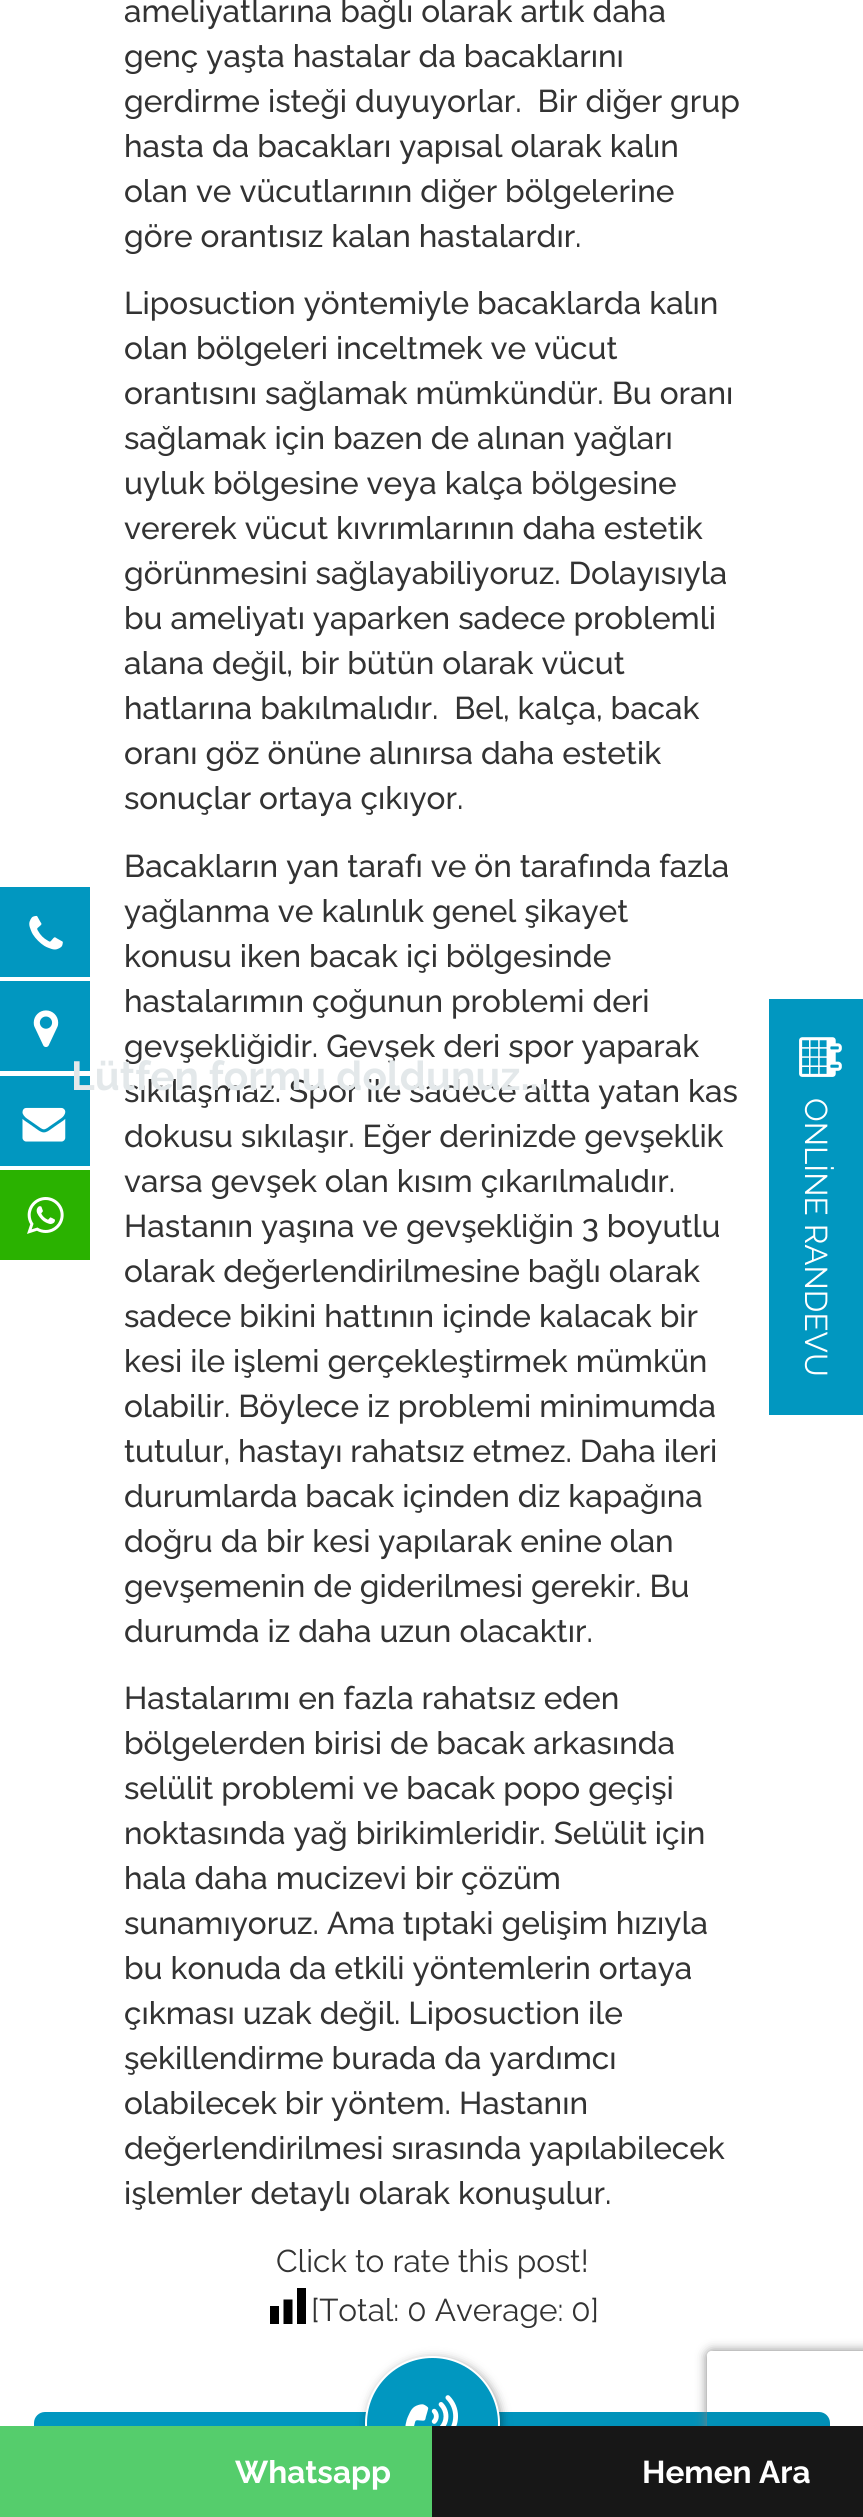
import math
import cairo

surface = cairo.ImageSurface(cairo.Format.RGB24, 863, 2517)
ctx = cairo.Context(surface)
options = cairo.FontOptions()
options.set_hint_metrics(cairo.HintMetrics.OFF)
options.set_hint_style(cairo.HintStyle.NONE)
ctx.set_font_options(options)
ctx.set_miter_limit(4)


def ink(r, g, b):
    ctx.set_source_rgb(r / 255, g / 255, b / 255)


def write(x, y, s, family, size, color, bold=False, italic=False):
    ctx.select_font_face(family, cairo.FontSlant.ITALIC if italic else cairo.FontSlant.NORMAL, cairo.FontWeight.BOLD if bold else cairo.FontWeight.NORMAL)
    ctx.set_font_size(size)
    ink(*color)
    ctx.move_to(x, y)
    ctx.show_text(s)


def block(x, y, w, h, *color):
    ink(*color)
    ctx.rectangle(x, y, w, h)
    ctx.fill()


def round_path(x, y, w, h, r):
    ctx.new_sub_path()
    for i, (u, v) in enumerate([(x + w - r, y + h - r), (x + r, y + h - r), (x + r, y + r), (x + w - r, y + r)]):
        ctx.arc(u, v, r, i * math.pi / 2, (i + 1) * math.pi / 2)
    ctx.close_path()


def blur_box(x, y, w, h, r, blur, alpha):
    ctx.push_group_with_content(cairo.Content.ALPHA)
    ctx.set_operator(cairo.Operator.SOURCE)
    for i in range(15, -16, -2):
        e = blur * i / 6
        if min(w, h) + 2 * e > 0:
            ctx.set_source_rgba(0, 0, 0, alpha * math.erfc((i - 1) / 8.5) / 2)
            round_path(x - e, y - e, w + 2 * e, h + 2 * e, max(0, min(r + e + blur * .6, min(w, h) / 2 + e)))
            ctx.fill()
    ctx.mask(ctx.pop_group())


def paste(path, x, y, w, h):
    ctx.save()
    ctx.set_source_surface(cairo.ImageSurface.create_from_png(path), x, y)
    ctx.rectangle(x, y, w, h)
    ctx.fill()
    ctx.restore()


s1 = dict(family="Raleway Medium", size=31.5, color=(51, 51, 51))
s2 = dict(family="Raleway", size=31.5, color=(51, 51, 51))
s3 = dict(family="Raleway", size=40.5, color=(227, 232, 234), bold=True)
s4 = dict(family="Raleway", size=31.5, color=(255, 255, 255))
s5 = dict(family="Raleway", size=31.5, color=(255, 255, 255), bold=True)

ink(255, 255, 255)
ctx.paint()
block(0, 887, 90, 90, 1, 151, 192)
paste("pic1.png", 29, 915, 34, 35)
block(0, 981, 90, 90, 1, 151, 192)
paste("pic2.png", 33, 1010, 26, 37)
block(0, 1076, 90, 90, 1, 151, 192)
paste("pic3.png", 22, 1107, 44, 35)
block(0, 1170, 90, 90, 42, 178, 0)
paste("pic4.png", 27, 1197, 37, 37)
write(124, 22, "ameliyatlarına bağlı olarak artık daha", **s1)
write(124, 67, "genç yaşta hastalar da bacaklarını", **s1)
write(124, 112, "gerdirme isteği duyuyorlar.  Bir diğer grup", **s1)
write(124, 157, "hasta da bacakları yapısal olarak kalın", **s1)
write(124, 202, "olan ve vücutlarının diğer bölgelerine", **s1)
write(124, 247, "göre orantısız kalan hastalardır.", **s1)
write(124, 314, "Liposuction yöntemiyle bacaklarda kalın", **s1)
write(124, 359, "olan bölgeleri inceltmek ve vücut", **s1)
write(124, 404, "orantısını sağlamak mümkündür. Bu oranı", **s1)
write(124, 449, "sağlamak için bazen de alınan yağları", **s1)
write(124, 494, "uyluk bölgesine veya kalça bölgesine", **s1)
write(124, 539, "vererek vücut kıvrımlarının daha estetik", **s1)
write(124, 584, "görünmesini sağlayabiliyoruz. Dolayısıyla", **s1)
write(124, 629, "bu ameliyatı yaparken sadece problemli", **s1)
write(124, 674, "alana değil, bir bütün olarak vücut", **s1)
write(124, 719, "hatlarına bakılmalıdır.  Bel, kalça, bacak", **s1)
write(124, 764, "oranı göz önüne alınırsa daha estetik", **s1)
write(124, 809, "sonuçlar ortaya çıkıyor.", **s1)
write(124, 877, "Bacakların yan tarafı ve ön tarafında fazla", **s1)
write(124, 922, "yağlanma ve kalınlık genel şikayet", **s1)
write(124, 967, "konusu iken bacak içi bölgesinde", **s1)
write(124, 1012, "hastalarımın çoğunun problemi deri", **s1)
write(124, 1057, "gevşekliğidir. Gevşek deri spor yaparak", **s1)
write(124, 1102, "sıkılaşmaz. Spor ile sadece altta yatan kas", **s1)
write(124, 1147, "dokusu sıkılaşır. Eğer derinizde gevşeklik", **s1)
write(124, 1192, "varsa gevşek olan kısım çıkarılmalıdır.", **s1)
write(124, 1237, "Hastanın yaşına ve gevşekliğin 3 boyutlu", **s1)
write(124, 1282, "olarak değerlendirilmesine bağlı olarak", **s1)
write(124, 1327, "sadece bikini hattının içinde kalacak bir", **s1)
write(124, 1372, "kesi ile işlemi gerçekleştirmek mümkün", **s1)
write(124, 1417, "olabilir. Böylece iz problemi minimumda", **s1)
write(124, 1462, "tutulur, hastayı rahatsız etmez. Daha ileri", **s1)
write(124, 1507, "durumlarda bacak içinden diz kapağına", **s1)
write(124, 1552, "doğru da bir kesi yapılarak enine olan", **s1)
write(124, 1597, "gevşemenin de giderilmesi gerekir. Bu", **s1)
write(124, 1642, "durumda iz daha uzun olacaktır.", **s1)
write(124, 1709, "Hastalarımı en fazla rahatsız eden", **s1)
write(124, 1754, "bölgelerden birisi de bacak arkasında", **s1)
write(124, 1799, "selülit problemi ve bacak popo geçişi", **s1)
write(124, 1844, "noktasında yağ birikimleridir. Selülit için", **s1)
write(124, 1889, "hala daha mucizevi bir çözüm", **s1)
write(124, 1934, "sunamıyoruz. Ama tıptaki gelişim hızıyla", **s1)
write(124, 1979, "bu konuda da etkili yöntemlerin ortaya", **s1)
write(124, 2024, "çıkması uzak değil. Liposuction ile", **s1)
write(124, 2069, "şekillendirme burada da yardımcı", **s1)
write(124, 2114, "olabilecek bir yöntem. Hastanın", **s1)
write(124, 2159, "değerlendirilmesi sırasında yapılabilecek", **s1)
write(124, 2204, "işlemler detaylı olarak konuşulur.", **s1)
write(276, 2272, "Click to rate this post!", **s2)
ink(0, 0, 0)
ctx.new_path()
ctx.move_to(306, 2324)
ctx.line_to(306, 2288)
ctx.line_to(297, 2288)
ctx.line_to(297, 2324)
ctx.close_path()
ctx.move_to(292.5, 2324)
ctx.line_to(292.5, 2299.5)
ctx.line_to(283.5, 2299.5)
ctx.line_to(283.5, 2324)
ctx.close_path()
ctx.move_to(279, 2324)
ctx.line_to(279, 2306)
ctx.line_to(270, 2306)
ctx.line_to(270, 2324)
ctx.close_path()
ctx.fill()
write(311, 2321, "[Total: 0 Average: 0]", **s2)
gradient = cairo.LinearGradient(58, 2395, 806, 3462)
gradient.add_color_stop_rgba(0.15, 0.004, 0.592, 0.753, 1)
gradient.add_color_stop_rgba(1, 0, 0.455, 0.576, 1)
ctx.set_source(gradient)
round_path(34, 2412, 796, 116, 11)
ctx.fill()
ink(0, 0, 0)
blur_box(369, 2360, 131, 131, 65.5, 5.5, 0.5)
ink(1, 151, 192)
ctx.arc(432.5, 2423.5, 66.5, 0, 2 * math.pi)
ctx.fill_preserve()
ink(255, 255, 255)
ctx.stroke()
paste("pic5.png", 405, 2395, 53, 31)
write(71, 1090, "Lütfen formu doldunuz...", **s3)
block(769, 999, 94, 416, 1, 151, 192)
paste("pic6.png", 799, 1037, 43, 40)
ctx.save()
ctx.translate(805, 1098)
ctx.rotate(90 * math.pi / 180)
write(0, 0, "ONLİNE RANDEVU", **s4)
ctx.restore()
ctx.save()
ctx.set_fill_rule(cairo.FillRule.EVEN_ODD)
ctx.new_path()
ctx.move_to(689, 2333)
ctx.line_to(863, 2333)
ctx.line_to(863, 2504)
ctx.line_to(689, 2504)
ctx.close_path()
ctx.move_to(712, 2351)
ctx.line_to(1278, 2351)
ctx.curve_to(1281, 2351, 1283, 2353, 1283, 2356)
ctx.line_to(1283, 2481)
ctx.curve_to(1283, 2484, 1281, 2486, 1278, 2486)
ctx.line_to(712, 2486)
ctx.curve_to(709, 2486, 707, 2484, 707, 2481)
ctx.line_to(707, 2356)
ctx.curve_to(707, 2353, 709, 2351, 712, 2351)
ctx.close_path()
ctx.clip()
ink(128, 128, 128)
blur_box(707, 2351, 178, 135, 5, 5.5, 1)
ctx.restore()
block(0, 2426, 432, 91, 85, 205, 108)
write(235, 2483, "Whatsapp", **s5)
block(432, 2426, 431, 91, 23, 23, 23)
write(642, 2483, "Hemen Ara", **s5)
surface.write_to_png("screenshot.png")
